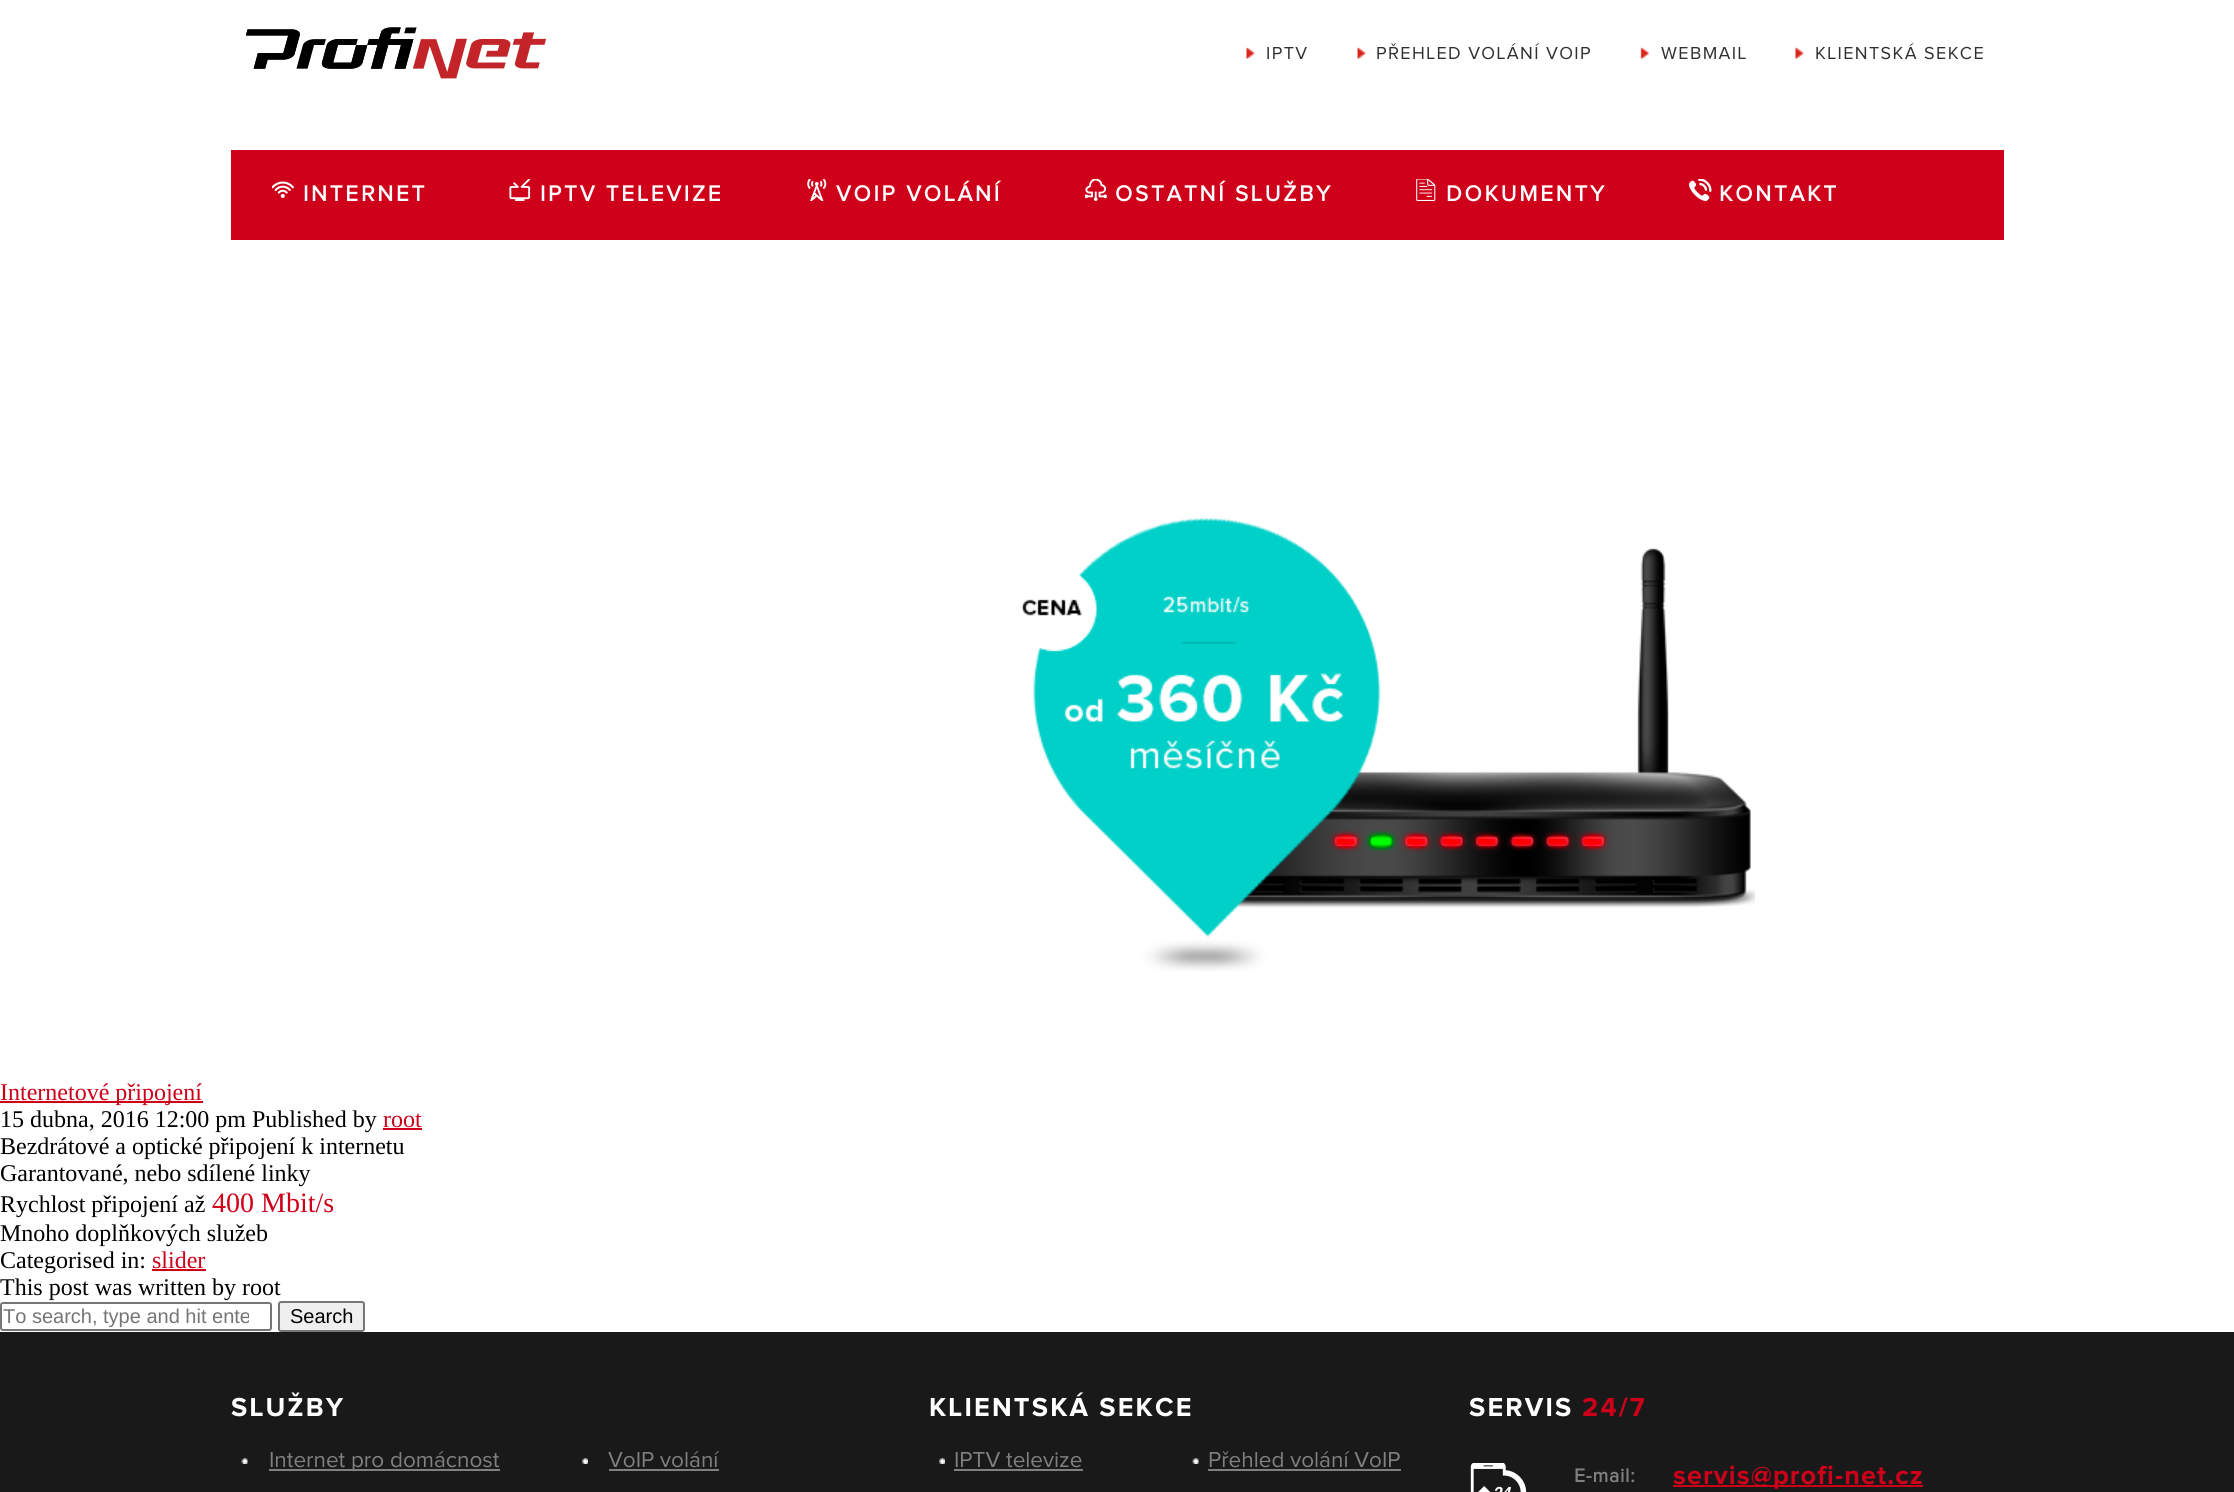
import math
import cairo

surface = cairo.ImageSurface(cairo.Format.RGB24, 2234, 1492)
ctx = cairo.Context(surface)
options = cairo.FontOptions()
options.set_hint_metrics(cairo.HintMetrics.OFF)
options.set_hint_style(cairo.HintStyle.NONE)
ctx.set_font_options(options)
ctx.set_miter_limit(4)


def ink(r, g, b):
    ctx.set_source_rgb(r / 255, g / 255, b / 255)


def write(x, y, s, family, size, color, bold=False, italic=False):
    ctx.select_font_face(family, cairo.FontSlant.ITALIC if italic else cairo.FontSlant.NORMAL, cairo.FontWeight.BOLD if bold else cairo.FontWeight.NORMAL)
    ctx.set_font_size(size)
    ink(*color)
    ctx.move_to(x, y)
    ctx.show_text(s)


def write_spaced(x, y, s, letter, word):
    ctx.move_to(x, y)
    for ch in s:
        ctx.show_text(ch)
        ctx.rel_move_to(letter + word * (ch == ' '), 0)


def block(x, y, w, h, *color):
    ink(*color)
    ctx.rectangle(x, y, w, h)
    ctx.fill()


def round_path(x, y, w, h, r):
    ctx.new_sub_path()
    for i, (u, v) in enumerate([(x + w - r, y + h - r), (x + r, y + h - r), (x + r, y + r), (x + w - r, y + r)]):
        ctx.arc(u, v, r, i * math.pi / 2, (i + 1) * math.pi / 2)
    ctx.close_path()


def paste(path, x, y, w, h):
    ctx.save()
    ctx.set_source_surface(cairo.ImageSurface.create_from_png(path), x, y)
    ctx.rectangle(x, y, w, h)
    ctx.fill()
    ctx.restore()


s1 = dict(family="Liberation Serif", size=24, color=(206, 0, 25))
s2 = dict(family="Liberation Serif", size=24, color=(0, 0, 0))
s3 = dict(family="Liberation Serif", size=28, color=(206, 0, 25))
s4 = dict(family="Liberation Sans", size=20, color=(117, 117, 117))
s5 = dict(family="Liberation Sans", size=20, color=(0, 0, 0))
s6 = dict(family="Proxima Nova", size=22.5, color=(128, 128, 128))

ink(255, 255, 255)
ctx.paint()
paste("pic1.png", 246, 27, 300, 52)
paste("pic2.png", 1246, 47, 9, 12)
ctx.select_font_face("Proxima Nova")
ctx.set_font_size(18)
ink(48, 48, 48)
write_spaced(1266, 59, "IPTV", 1.4, 0)
paste("pic2.png", 1357, 47, 9, 12)
write_spaced(1376, 59, "PŘEHLED VOLÁNÍ VOIP", 1.4, 0)
paste("pic3.png", 1640, 47, 9, 12)
write_spaced(1661, 59, "WEBMAIL", 1.4, 0)
paste("pic2.png", 1795, 47, 9, 12)
write_spaced(1815, 59, "KLIENTSKÁ SEKCE", 1.4, 0)
block(231, 150, 1773, 90, 207, 0, 25)
paste("pic4.png", 272, 181, 22, 17)
ctx.select_font_face("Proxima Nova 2", cairo.FontSlant.NORMAL, cairo.FontWeight.BOLD)
ctx.set_font_size(22.5)
ink(255, 255, 255)
write_spaced(303, 201, "INTERNET", 2.75, 0)
paste("pic5.png", 509, 179, 22, 22)
write_spaced(540, 201, "IPTV TELEVIZE", 2.75, 0)
paste("pic6.png", 807, 179, 20, 22)
write_spaced(836, 201, "VOIP VOLÁNÍ", 2.75, 0)
paste("pic7.png", 1085, 179, 22, 22)
write_spaced(1115, 201, "OSTATNÍ SLUŽBY", 2.75, 0)
paste("pic8.png", 1416, 179, 20, 22)
write_spaced(1446, 201, "DOKUMENTY", 2.75, 0)
paste("pic9.png", 1689, 179, 23, 22)
write_spaced(1719, 201, "KONTAKT", 2.75, 0)
paste("pic10.png", 1021, 517, 734, 454)
block(0, 1101, 203, 2, 207, 0, 25)
write(0, 1100, "Internetové připojení", **s1)
write(0, 1127, "15 dubna, 2016 12:00 pm Published by", **s2)
write(383, 1127, "root", **s1)
block(383, 1128, 39, 2, 207, 0, 25)
write(0, 1154, "Bezdrátové a optické připojení k internetu", **s2)
write(0, 1181, "Garantované, nebo sdílené linky", **s2)
write(0, 1212, "Rychlost připojení až", **s2)
write(212, 1212, "400 Mbit/s", **s3)
write(0, 1241, "Mnoho doplňkových služeb", **s2)
write(0, 1268, "Categorised in:", **s2)
write(152, 1268, "slider", **s1)
block(152, 1269, 54, 2, 207, 0, 25)
write(0, 1295, "This post was written by root", **s2)
round_path(1, 1303, 270, 27, 2)
ink(118, 118, 118)
ctx.stroke()
ctx.save()
ctx.rectangle(3, 1305, 246, 23)
ctx.clip()
write(3, 1323, "To search, type and hit ente", **s4)
ctx.restore()
ink(239, 239, 239)
round_path(279, 1302, 85, 29, 2)
ctx.fill_preserve()
ink(118, 118, 118)
ctx.stroke()
write(290, 1323, "Search", **s5)
block(0, 1332, 2234, 160, 25, 25, 25)
ctx.select_font_face("Proxima Nova", cairo.FontSlant.NORMAL, cairo.FontWeight.BOLD)
ctx.set_font_size(27)
ink(255, 255, 255)
write_spaced(231, 1416, "SLUŽBY", 2.2, 0)
paste("pic11.png", 241, 1458, 7, 6)
block(269, 1469, 231, 2, 128, 128, 128)
write(269, 1467, "Internet pro domácnost", **s6)
paste("pic12.png", 582, 1458, 6, 6)
write(608, 1467, "VoIP volání", **s6)
block(609, 1469, 110, 2, 128, 128, 128)
ctx.select_font_face("Proxima Nova", cairo.FontSlant.NORMAL, cairo.FontWeight.BOLD)
ctx.set_font_size(27)
ink(255, 255, 255)
write_spaced(929, 1416, "KLIENTSKÁ SEKCE", 2.2, 0)
paste("pic13.png", 939, 1458, 6, 6)
write(954, 1467, "IPTV televize", **s6)
block(954, 1469, 129, 2, 128, 128, 128)
paste("pic14.png", 1192, 1458, 7, 6)
write(1208, 1467, "Přehled volání VoIP", **s6)
block(1208, 1469, 193, 2, 128, 128, 128)
ctx.select_font_face("Proxima Nova", cairo.FontSlant.NORMAL, cairo.FontWeight.BOLD)
ctx.set_font_size(27)
ink(255, 255, 255)
write_spaced(1469, 1416, "SERVIS", 2.2, 0)
ink(206, 0, 25)
write_spaced(1582, 1416, "24/7", 2.2, 0)
paste("pic15.png", 1470, 1463, 57, 29)
ctx.select_font_face("Proxima Nova 2", cairo.FontSlant.NORMAL, cairo.FontWeight.BOLD)
ctx.set_font_size(19.5)
ink(128, 128, 128)
write_spaced(1574, 1482, "E-mail:", 0.75, 0)
block(1673, 1485, 250, 2, 206, 0, 25)
ctx.select_font_face("Proxima Nova", cairo.FontSlant.NORMAL, cairo.FontWeight.BOLD)
ctx.set_font_size(27)
write_spaced(1673, 1484, "servis@profi-net.cz", 1.1, 0)
surface.write_to_png("screenshot.png")
